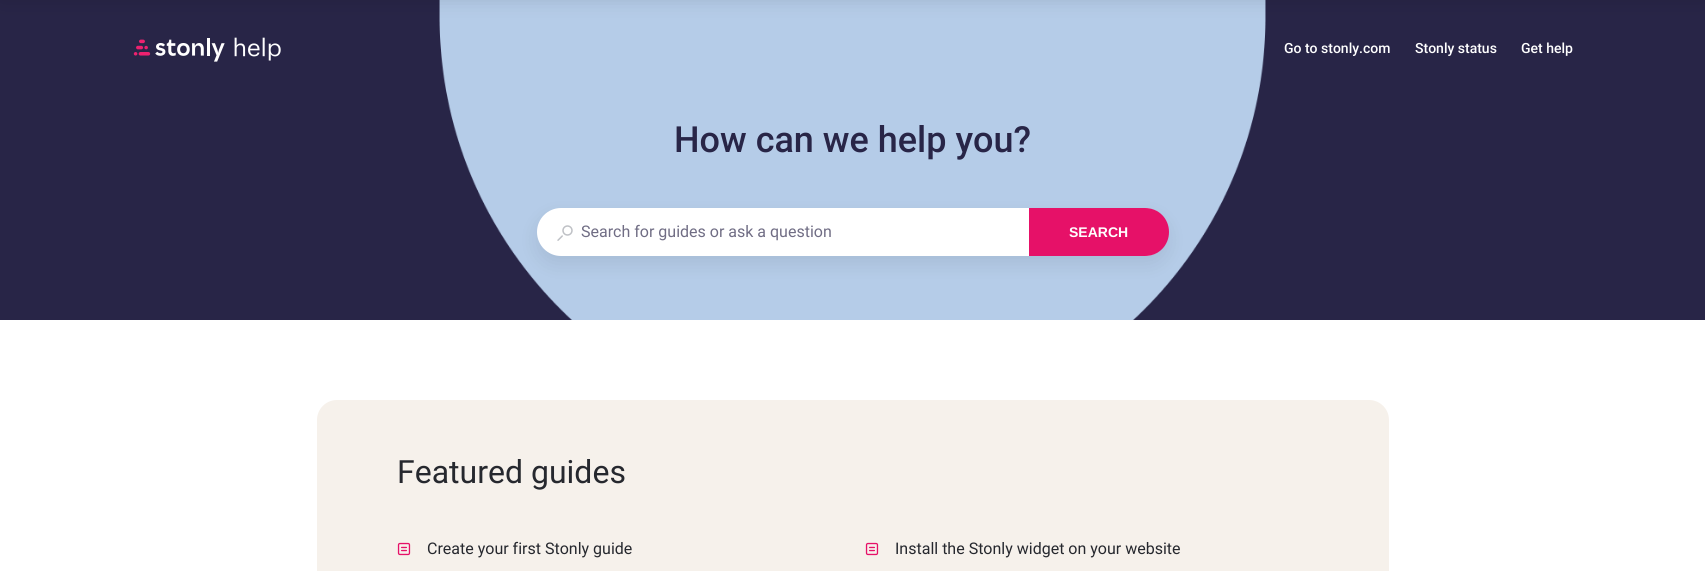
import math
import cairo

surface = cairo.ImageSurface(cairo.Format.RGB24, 1705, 571)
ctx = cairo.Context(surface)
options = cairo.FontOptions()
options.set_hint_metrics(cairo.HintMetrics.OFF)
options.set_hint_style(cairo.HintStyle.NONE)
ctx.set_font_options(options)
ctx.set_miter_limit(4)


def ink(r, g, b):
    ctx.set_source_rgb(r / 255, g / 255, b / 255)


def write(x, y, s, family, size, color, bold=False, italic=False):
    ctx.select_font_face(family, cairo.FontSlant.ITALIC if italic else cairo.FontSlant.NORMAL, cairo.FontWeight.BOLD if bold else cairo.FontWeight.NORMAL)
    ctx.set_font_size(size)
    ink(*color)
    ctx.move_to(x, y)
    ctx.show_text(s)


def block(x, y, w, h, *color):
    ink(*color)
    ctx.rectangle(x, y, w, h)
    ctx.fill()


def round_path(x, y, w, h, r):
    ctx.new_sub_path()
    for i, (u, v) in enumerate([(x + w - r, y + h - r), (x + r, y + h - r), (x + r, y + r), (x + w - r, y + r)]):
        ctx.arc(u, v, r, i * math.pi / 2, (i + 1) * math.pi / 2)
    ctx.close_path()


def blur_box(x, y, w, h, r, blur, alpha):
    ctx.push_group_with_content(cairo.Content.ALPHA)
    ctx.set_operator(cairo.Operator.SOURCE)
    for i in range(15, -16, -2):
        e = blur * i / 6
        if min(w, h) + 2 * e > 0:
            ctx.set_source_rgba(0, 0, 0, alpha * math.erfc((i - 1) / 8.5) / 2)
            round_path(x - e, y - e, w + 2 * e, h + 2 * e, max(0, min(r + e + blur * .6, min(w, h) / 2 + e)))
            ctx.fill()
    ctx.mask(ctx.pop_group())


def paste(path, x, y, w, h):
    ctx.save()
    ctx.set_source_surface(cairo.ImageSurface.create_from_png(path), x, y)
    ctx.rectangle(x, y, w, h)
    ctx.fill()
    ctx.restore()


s1 = dict(family="Roboto Medium", size=14, color=(255, 255, 255))
s2 = dict(family="Roboto Medium", size=36, color=(40, 37, 71))
s3 = dict(family="Roboto", size=16, color=(112, 109, 132))
s4 = dict(family="Liberation Sans", size=14, color=(255, 255, 255), bold=True)
s5 = dict(family="Roboto", size=32, color=(38, 40, 46))
s6 = dict(family="Roboto", size=16, color=(38, 40, 46))

ink(255, 255, 255)
ctx.paint()
block(0, 0, 1705, 320, 40, 37, 71)
paste("pic1.png", 439, 0, 827, 320)
ink(0, 0, 0)
blur_box(0, -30, 1705, 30, 0, 10, 0.12)
paste("pic2.png", 133, 37, 148, 25)
write(1284, 53, "Go to stonly.com", **s1)
write(1415, 53, "Stonly status", **s1)
write(1521, 53, "Get help", **s1)
write(674, 152, "How can we help you?", **s2)
ink(0, 0, 0)
blur_box(537, 216, 631, 48, 24, 10, 0.08)
ink(255, 255, 255)
round_path(537, 208, 631, 48, 24)
ctx.fill()
paste("pic3.png", 557, 225, 16, 16)
write(581, 237, "Search for guides or ask a question", **s3)
ink(230, 17, 104)
ctx.new_path()
ctx.move_to(1029, 208)
ctx.line_to(1145, 208)
ctx.curve_to(1158.5, 208, 1169, 218.5, 1169, 232)
ctx.curve_to(1169, 245.5, 1158.5, 256, 1145, 256)
ctx.line_to(1029, 256)
ctx.close_path()
ctx.fill()
write(1069, 237, "SEARCH", **s4)
ink(246, 241, 235)
round_path(317, 400, 1072, 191, 20)
ctx.fill()
write(397, 483, "Featured guides", **s5)
paste("pic4.png", 397, 542, 14, 14)
write(427, 554, "Create your first Stonly guide", **s6)
paste("pic4.png", 865, 542, 14, 14)
write(895, 554, "Install the Stonly widget on your website", **s6)
surface.write_to_png("screenshot.png")
